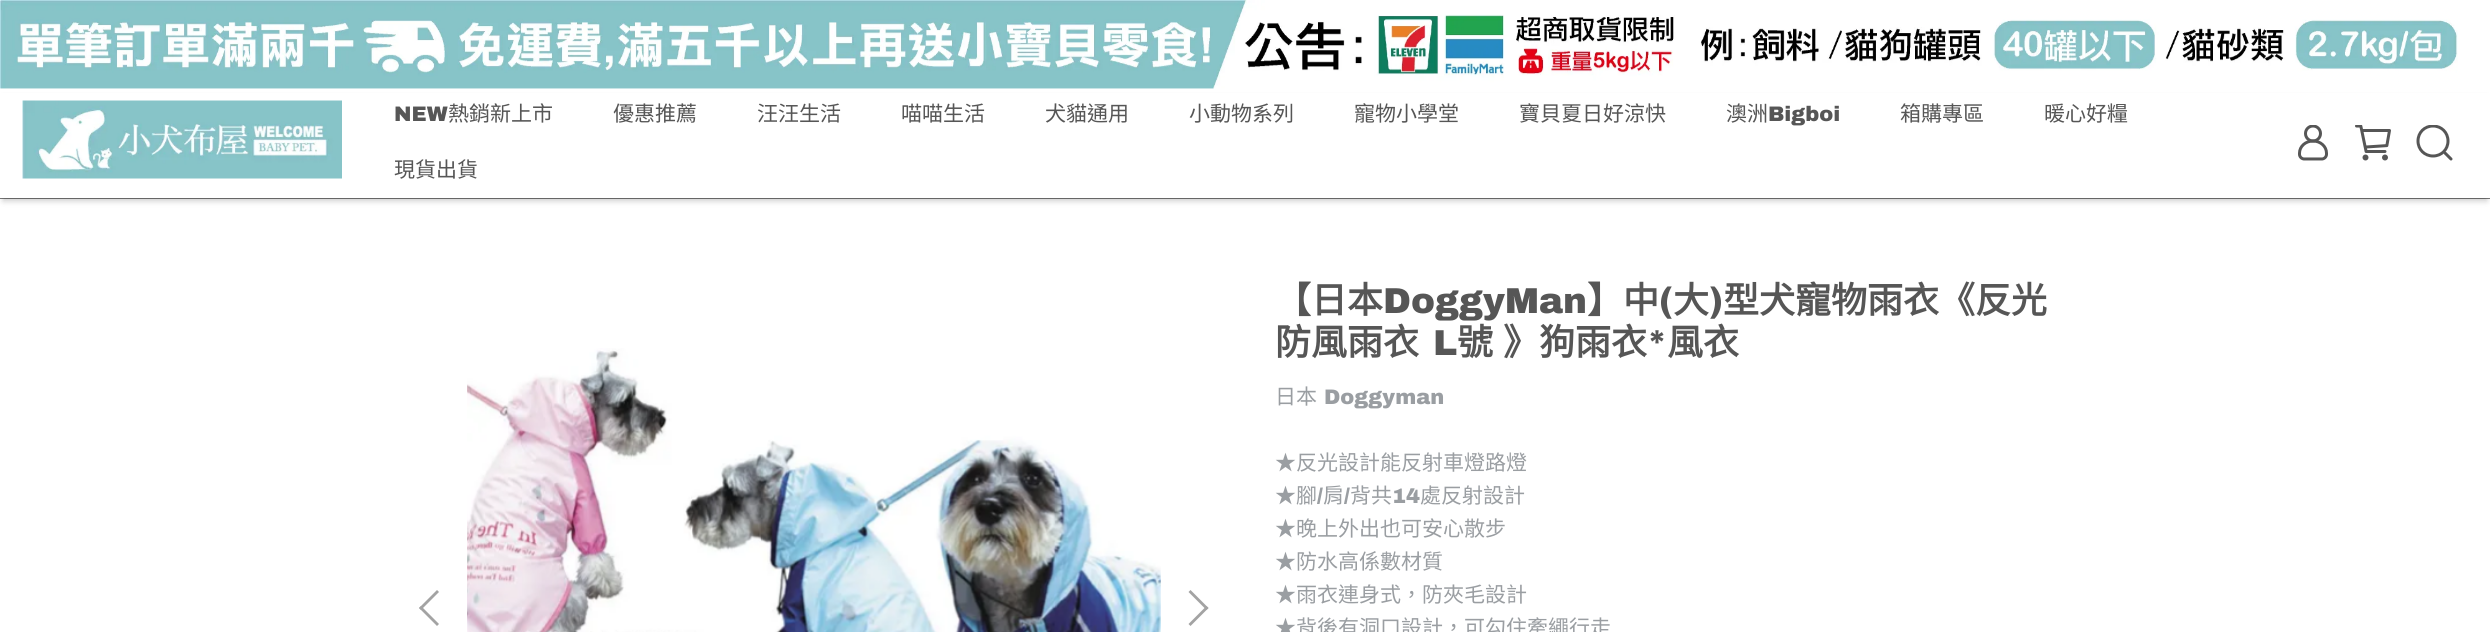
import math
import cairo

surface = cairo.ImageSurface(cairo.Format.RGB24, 2490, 632)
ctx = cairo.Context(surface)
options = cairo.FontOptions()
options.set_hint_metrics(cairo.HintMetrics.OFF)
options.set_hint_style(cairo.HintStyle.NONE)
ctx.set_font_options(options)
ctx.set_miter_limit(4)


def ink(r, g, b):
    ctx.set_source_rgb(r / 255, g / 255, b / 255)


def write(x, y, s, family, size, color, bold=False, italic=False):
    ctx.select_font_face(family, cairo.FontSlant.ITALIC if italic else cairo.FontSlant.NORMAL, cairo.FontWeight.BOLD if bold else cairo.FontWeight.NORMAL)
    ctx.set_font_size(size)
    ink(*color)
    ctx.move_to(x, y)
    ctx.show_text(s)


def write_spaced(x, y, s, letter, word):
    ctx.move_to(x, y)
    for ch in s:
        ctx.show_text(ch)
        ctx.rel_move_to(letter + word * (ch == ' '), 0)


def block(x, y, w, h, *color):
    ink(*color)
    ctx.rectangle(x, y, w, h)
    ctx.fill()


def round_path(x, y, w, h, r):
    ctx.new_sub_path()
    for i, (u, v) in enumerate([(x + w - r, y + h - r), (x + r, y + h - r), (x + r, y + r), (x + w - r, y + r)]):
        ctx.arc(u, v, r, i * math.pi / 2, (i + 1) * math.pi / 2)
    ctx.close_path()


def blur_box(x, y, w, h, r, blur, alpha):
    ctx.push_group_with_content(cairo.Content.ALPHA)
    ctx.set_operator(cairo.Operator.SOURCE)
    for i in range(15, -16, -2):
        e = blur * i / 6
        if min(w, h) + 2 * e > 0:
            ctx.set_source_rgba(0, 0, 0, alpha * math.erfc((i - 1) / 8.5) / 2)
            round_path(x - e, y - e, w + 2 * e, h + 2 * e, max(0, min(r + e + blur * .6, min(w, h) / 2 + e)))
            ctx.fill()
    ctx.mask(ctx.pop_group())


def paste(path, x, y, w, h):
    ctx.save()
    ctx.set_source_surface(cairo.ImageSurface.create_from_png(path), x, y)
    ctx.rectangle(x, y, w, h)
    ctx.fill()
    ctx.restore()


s1 = dict(family="Archivo Black Black", size=21, color=(86, 86, 86))
s2 = dict(family="Noto Sans CJK TC", size=21, color=(86, 86, 86))
s3 = dict(family="Noto Sans CJK TC", size=36, color=(86, 86, 86), bold=True)
s4 = dict(family="Archivo Black Black", size=36, color=(86, 86, 86))
s5 = dict(family="Noto Sans CJK TC", size=21, color=(154, 158, 162))
s6 = dict(family="Archivo Black Black", size=21, color=(154, 158, 162))

ink(255, 255, 255)
ctx.paint()
block(0, 198, 2490, 1, 122, 122, 122)
ink(0, 0, 0)
blur_box(3, 98, 2484, 103, 0, 3, 0.2)
paste("pic1.png", 0, 0, 2458, 89)
block(0, 93, 2490, 105, 255, 255, 255)
paste("pic2.png", 22, 100, 320, 79)
write(394, 121, "NEW", **s1)
write(448, 121, "熱銷新上市", **s2)
write(613, 121, "優惠推薦", **s2)
write(757, 121, "汪汪生活", **s2)
write(901, 121, "喵喵生活", **s2)
write(1045, 121, "犬貓通用", **s2)
write(1189, 121, "小動物系列", **s2)
write(1354, 121, "寵物小學堂", **s2)
write(1519, 121, "寶貝夏日好涼快", **s2)
write(1726, 121, "澳洲", **s2)
write(1768, 121, "Bigboi", **s1)
write(1900, 121, "箱購專區", **s2)
write(2044, 121, "暖心好糧", **s2)
write(394, 177, "現貨出貨", **s2)
paste("pic3.png", 2298, 125, 30, 36)
paste("pic4.png", 2355, 125, 36, 36)
ctx.save()
ctx.rectangle(2415, 125, 39, 36)
ctx.clip()
ctx.new_path()
ctx.move_to(2448, 141)
ctx.curve_to(2448, 149.5, 2441.5, 156, 2433, 156)
ctx.curve_to(2424.5, 156, 2418, 149.5, 2418, 141)
ctx.curve_to(2418, 132.5, 2424.5, 126, 2433, 126)
ctx.curve_to(2441.5, 126, 2448, 132.5, 2448, 141)
ctx.close_path()
ctx.set_line_width(3)
ctx.set_line_cap(cairo.LineCap.ROUND)
ctx.set_line_join(cairo.LineJoin.ROUND)
ctx.stroke()
ctx.restore()
ctx.new_path()
ctx.move_to(2445, 153)
ctx.line_to(2451, 159)
ctx.set_line_width(3)
ctx.set_line_cap(cairo.LineCap.ROUND)
ctx.set_line_join(cairo.LineJoin.ROUND)
ctx.stroke()
ink(163, 163, 163)
ctx.new_path()
ctx.move_to(437, 626)
ctx.line_to(419, 608)
ctx.line_to(421, 606)
ctx.line_to(439, 624)
ctx.close_path()
ctx.fill()
ctx.new_path()
ctx.move_to(421, 610)
ctx.line_to(419, 608)
ctx.line_to(437, 590)
ctx.line_to(439, 592)
ctx.close_path()
ctx.fill()
paste("pic5.png", 467, 348, 694, 284)
ctx.new_path()
ctx.move_to(1190.5, 590)
ctx.line_to(1208.5, 608)
ctx.line_to(1206.5, 610)
ctx.line_to(1188.5, 592)
ctx.close_path()
ctx.fill()
ctx.new_path()
ctx.move_to(1206.5, 606)
ctx.line_to(1208.5, 608)
ctx.line_to(1190.5, 626)
ctx.line_to(1188.5, 624)
ctx.close_path()
ctx.fill()
write(1275, 313, "【日本", **s3)
write(1383, 313, "DoggyMan", **s4)
write(1587, 313, "】中", **s3)
write(1659, 313, "(", **s4)
write(1673, 313, "大", **s3)
write(1709, 313, ")", **s4)
write(1723, 313, "型犬寵物雨衣《反光", **s3)
write(1275, 355, "防風雨衣", **s3)
write(1433, 355, "L", **s4)
ctx.select_font_face("Noto Sans CJK TC", cairo.FontSlant.NORMAL, cairo.FontWeight.BOLD)
write_spaced(1457, 355, "號 》狗雨衣", 0, 2)
write(1647, 355, "*", **s4)
write(1667, 355, "風衣", **s3)
write(1275, 404, "日本", **s5)
write(1324, 404, "Doggyman", **s6)
write(1275, 470, "★反光設計能反射車燈路燈", **s5)
write(1275, 503, "★腳", **s5)
write(1317, 503, "/", **s6)
write(1323, 503, "肩", **s5)
write(1344, 503, "/", **s6)
write(1350, 503, "背共", **s5)
write(1392, 503, "14", **s6)
write(1420, 503, "處反射設計", **s5)
write(1275, 536, "★晚上外出也可安心散步", **s5)
write(1275, 569, "★防水高係數材質", **s5)
write(1275, 602, "★雨衣連身式，防夾毛設計", **s5)
write(1275, 635, "★背後有洞口設計，可勾住牽繩行走", **s5)
surface.write_to_png("screenshot.png")
